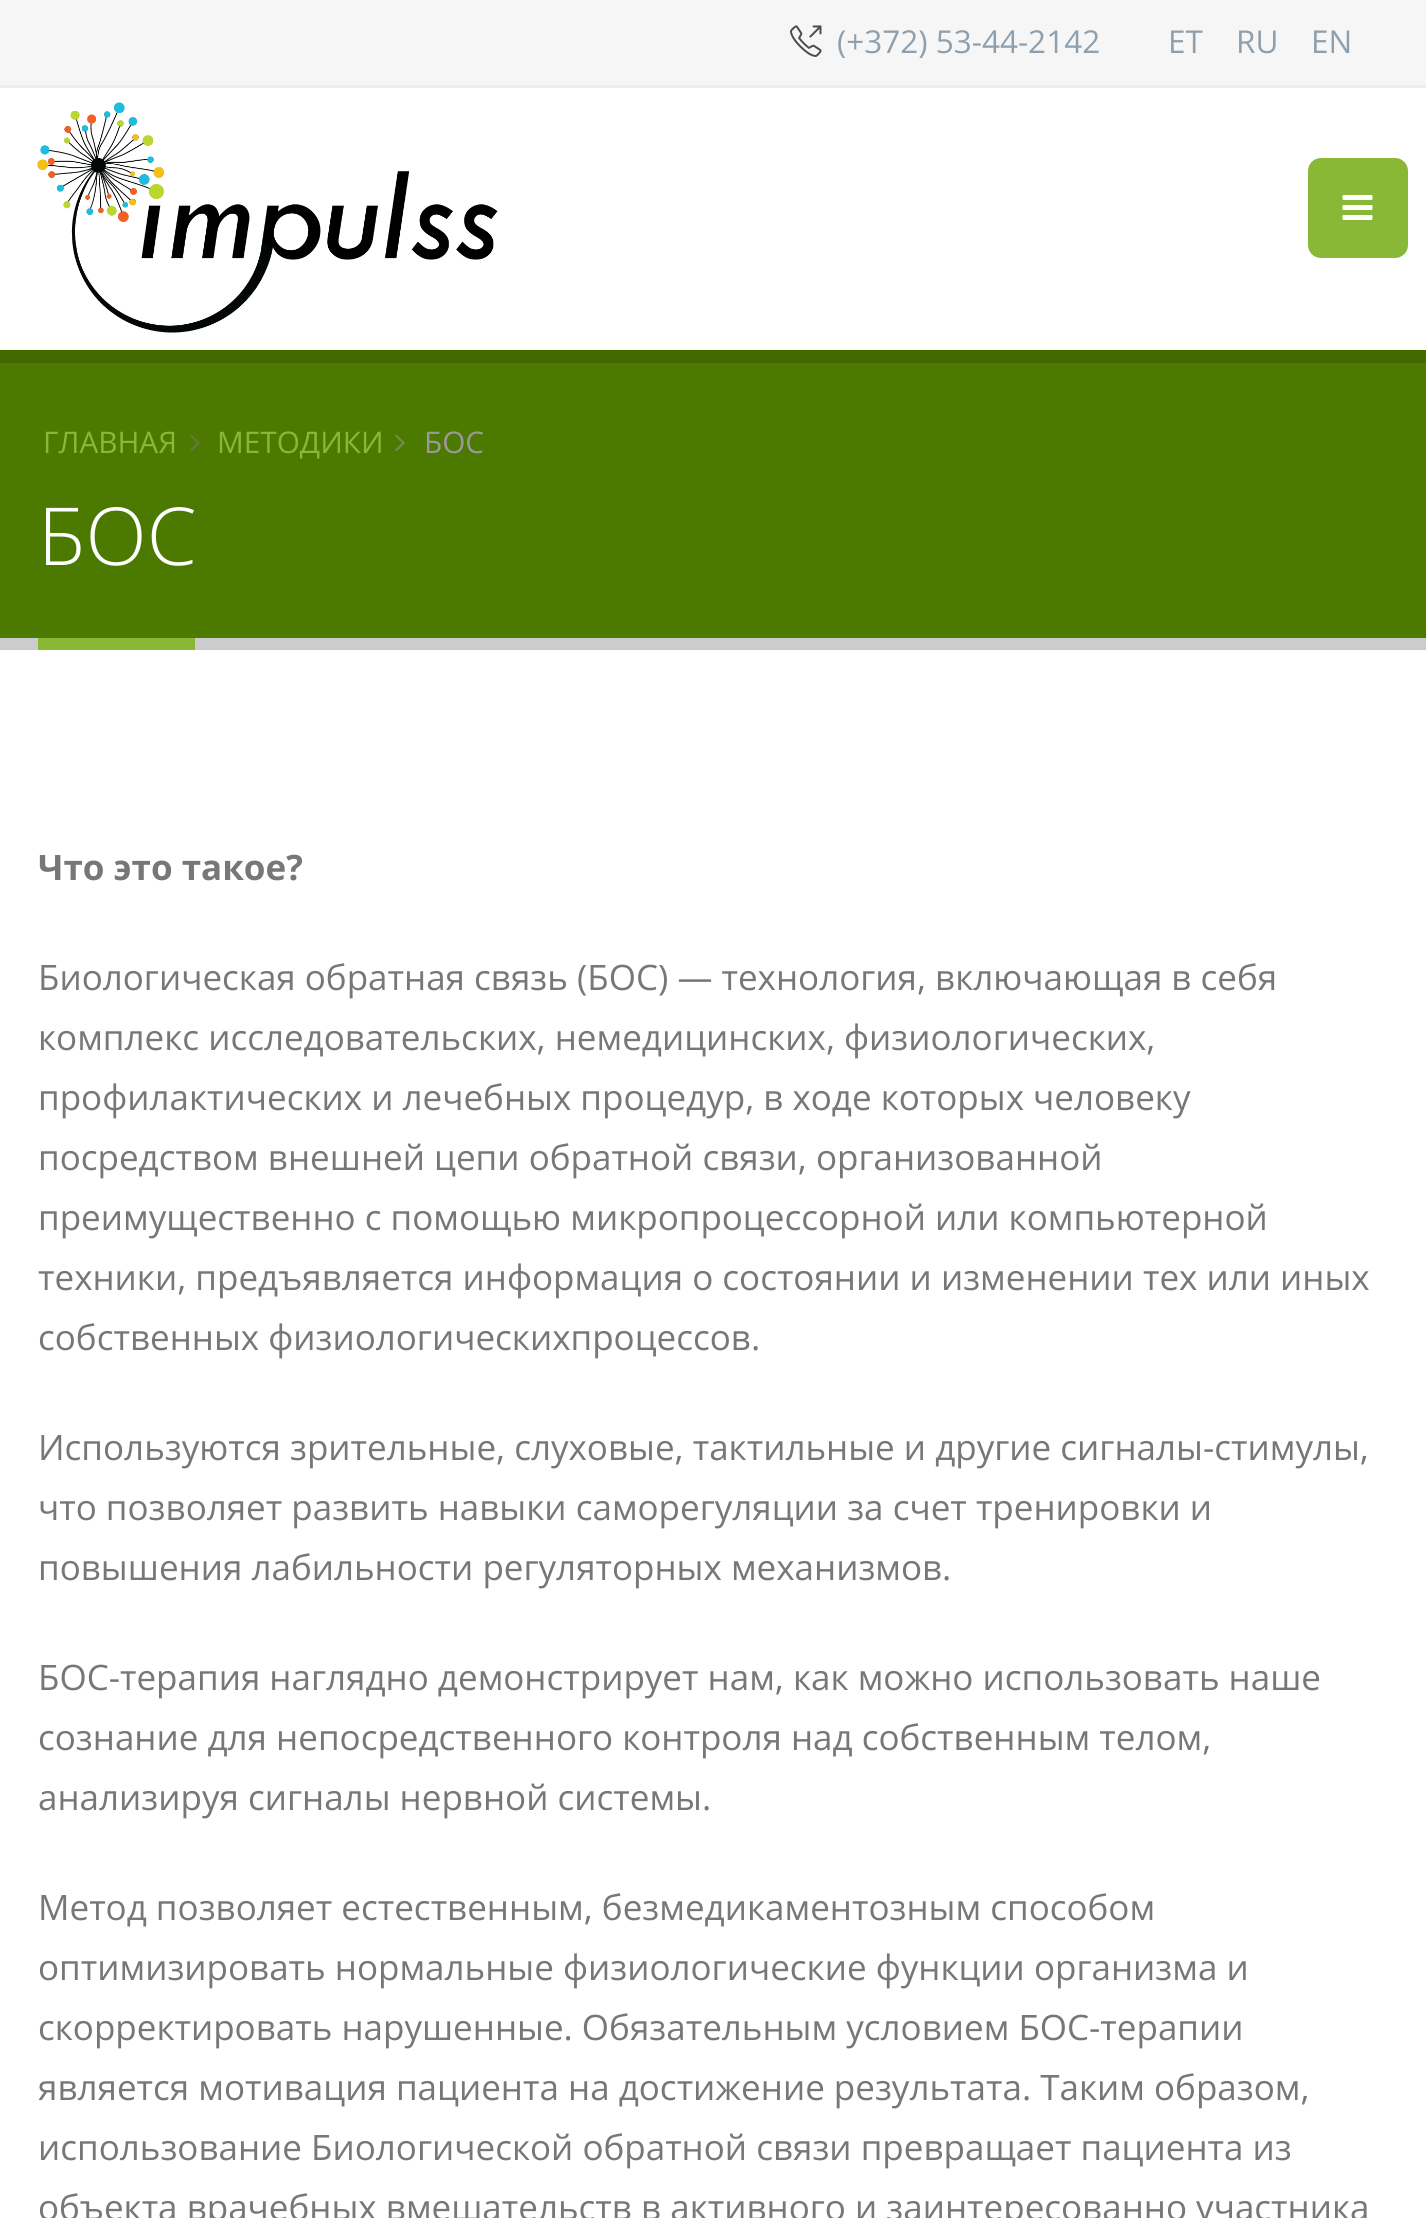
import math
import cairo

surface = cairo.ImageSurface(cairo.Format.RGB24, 1426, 2218)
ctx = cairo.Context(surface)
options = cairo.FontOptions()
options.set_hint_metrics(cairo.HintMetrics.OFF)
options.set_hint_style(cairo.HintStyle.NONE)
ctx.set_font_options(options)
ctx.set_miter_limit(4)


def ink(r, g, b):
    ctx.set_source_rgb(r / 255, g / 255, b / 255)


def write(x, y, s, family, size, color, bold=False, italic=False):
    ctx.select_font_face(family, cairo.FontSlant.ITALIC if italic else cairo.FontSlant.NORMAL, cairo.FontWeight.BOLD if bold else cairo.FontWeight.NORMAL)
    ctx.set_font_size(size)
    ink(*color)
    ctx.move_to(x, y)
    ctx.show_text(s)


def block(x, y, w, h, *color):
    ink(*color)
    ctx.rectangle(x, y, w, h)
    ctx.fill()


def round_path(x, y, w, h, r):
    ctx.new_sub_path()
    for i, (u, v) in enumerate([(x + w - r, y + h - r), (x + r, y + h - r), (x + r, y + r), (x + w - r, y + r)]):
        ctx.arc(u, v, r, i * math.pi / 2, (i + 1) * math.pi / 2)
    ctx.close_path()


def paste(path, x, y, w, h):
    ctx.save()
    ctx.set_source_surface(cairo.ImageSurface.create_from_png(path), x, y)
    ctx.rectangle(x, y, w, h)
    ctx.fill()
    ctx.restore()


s1 = dict(family="Open Sans", size=31.5, color=(142, 160, 174))
s2 = dict(family="Open Sans", size=29.75, color=(137, 184, 55))
s3 = dict(family="Open Sans", size=29.75, color=(153, 153, 153))
s4 = dict(family="Open Sans Light", size=80, color=(255, 255, 255))
s5 = dict(family="Open Sans", size=35, color=(119, 119, 119), bold=True)
s6 = dict(family="Open Sans", size=35, color=(119, 119, 119))

ink(255, 255, 255)
ctx.paint()
block(0, 0, 1426, 85, 246, 246, 246)
block(0, 85, 1426, 3, 237, 237, 237)
paste("pic1.png", 790, 25, 32, 32)
write(837, 53, "(+372) 53-44-2142", **s1)
write(1168, 53, "ET", **s1)
write(1236, 53, "RU", **s1)
write(1311, 53, "EN", **s1)
paste("pic2.png", 37, 102, 461, 231)
ink(137, 184, 55)
round_path(1308, 158, 100, 100, 13)
ctx.fill()
paste("pic3.png", 1342, 195, 31, 25)
block(0, 363, 1426, 275, 76, 121, 0)
block(0, 350, 1426, 13, 66, 105, 0)
block(0, 638, 1426, 12, 204, 204, 204)
write(43, 453, "ГЛАВНАЯ", **s2)
paste("pic4.png", 190, 434, 10, 18)
write(217, 453, "МЕТОДИКИ", **s2)
paste("pic5.png", 395, 434, 10, 18)
write(424, 453, "БОС", **s3)
block(38, 638, 157, 12, 137, 184, 55)
write(38, 565, "БОС", **s4)
write(38, 880, "Что это такое?", **s5)
write(38, 990, "Биологическая обратная связь (БОС) — технология, включающая в себя", **s6)
write(38, 1050, "комплекс исследовательских, немедицинских, физиологических,", **s6)
write(38, 1110, "профилактических и лечебных процедур, в ходе которых человеку", **s6)
write(38, 1170, "посредством внешней цепи обратной связи, организованной", **s6)
write(38, 1230, "преимущественно с помощью микропроцессорной или компьютерной", **s6)
write(38, 1290, "техники, предъявляется информация о состоянии и изменении тех или иных", **s6)
write(38, 1350, "собственных физиологическихпроцессов.", **s6)
write(38, 1460, "Используются зрительные, слуховые, тактильные и другие сигналы-стимулы,", **s6)
write(38, 1520, "что позволяет развить навыки саморегуляции за счет тренировки и", **s6)
write(38, 1580, "повышения лабильности регуляторных механизмов.", **s6)
write(38, 1690, "БОС-терапия наглядно демонстрирует нам, как можно использовать наше", **s6)
write(38, 1750, "сознание для непосредственного контроля над собственным телом,", **s6)
write(38, 1810, "анализируя сигналы нервной системы.", **s6)
write(38, 1920, "Метод позволяет естественным, безмедикаментозным способом", **s6)
write(38, 1980, "оптимизировать нормальные физиологические функции организма и", **s6)
write(38, 2040, "скорректировать нарушенные. Обязательным условием БОС-терапии", **s6)
write(38, 2100, "является мотивация пациента на достижение результата. Таким образом,", **s6)
write(38, 2160, "использование Биологической обратной связи превращает пациента из", **s6)
write(38, 2220, "объекта врачебных вмешательств в активного и заинтересованно участника", **s6)
surface.write_to_png("screenshot.png")
